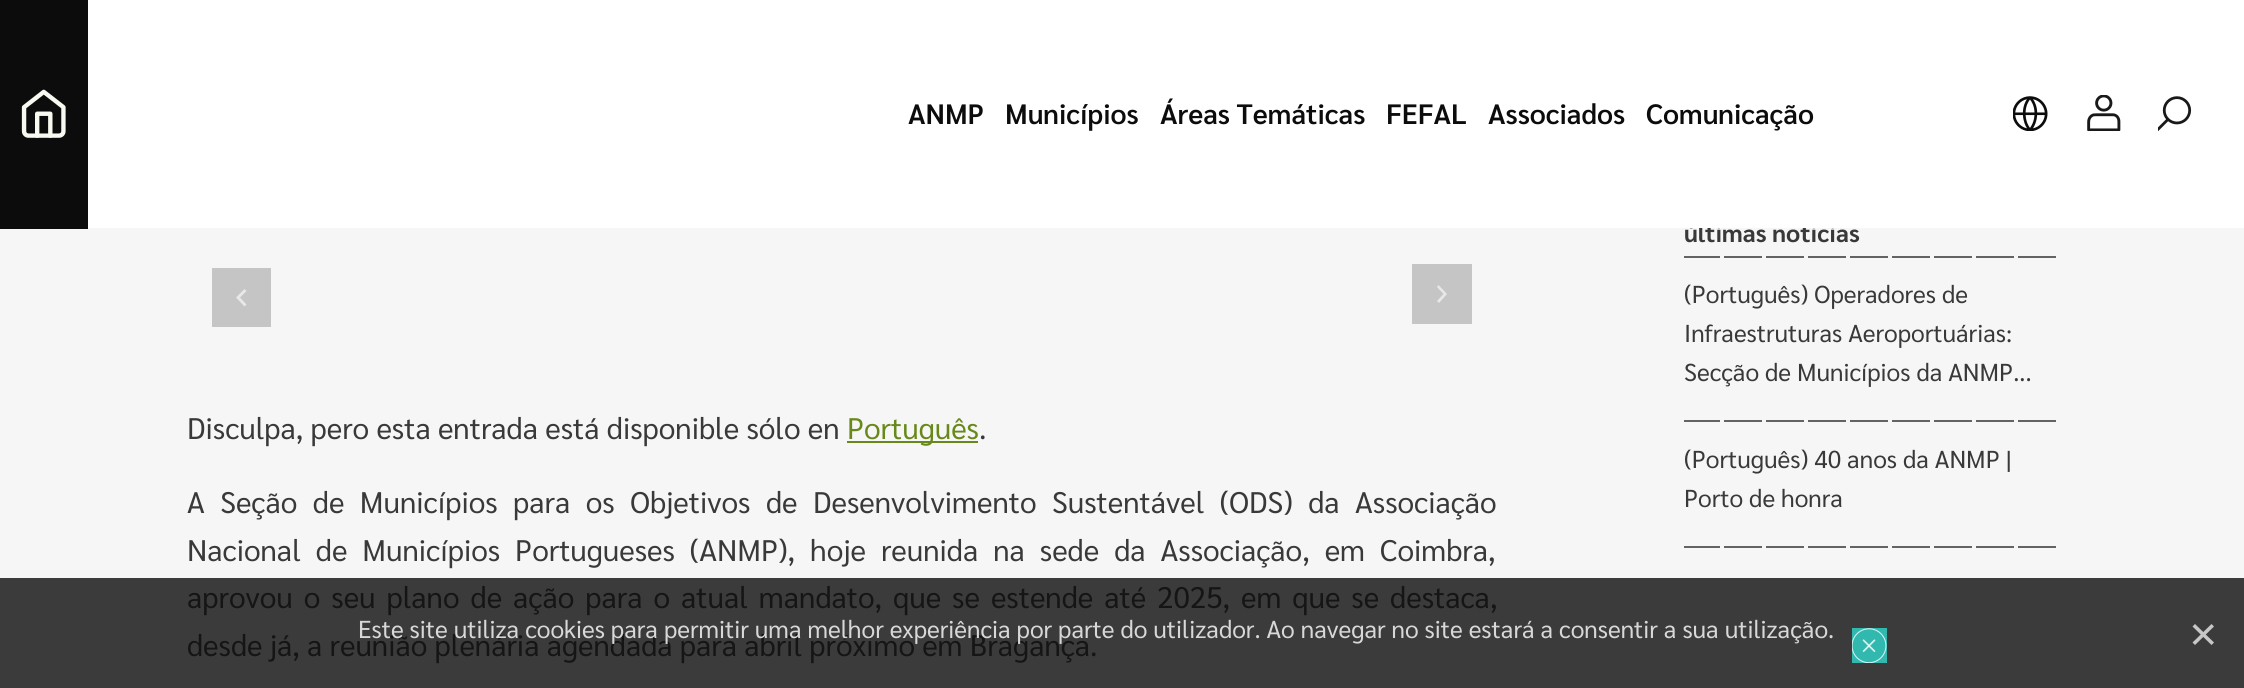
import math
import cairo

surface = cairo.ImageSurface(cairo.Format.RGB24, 2244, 688)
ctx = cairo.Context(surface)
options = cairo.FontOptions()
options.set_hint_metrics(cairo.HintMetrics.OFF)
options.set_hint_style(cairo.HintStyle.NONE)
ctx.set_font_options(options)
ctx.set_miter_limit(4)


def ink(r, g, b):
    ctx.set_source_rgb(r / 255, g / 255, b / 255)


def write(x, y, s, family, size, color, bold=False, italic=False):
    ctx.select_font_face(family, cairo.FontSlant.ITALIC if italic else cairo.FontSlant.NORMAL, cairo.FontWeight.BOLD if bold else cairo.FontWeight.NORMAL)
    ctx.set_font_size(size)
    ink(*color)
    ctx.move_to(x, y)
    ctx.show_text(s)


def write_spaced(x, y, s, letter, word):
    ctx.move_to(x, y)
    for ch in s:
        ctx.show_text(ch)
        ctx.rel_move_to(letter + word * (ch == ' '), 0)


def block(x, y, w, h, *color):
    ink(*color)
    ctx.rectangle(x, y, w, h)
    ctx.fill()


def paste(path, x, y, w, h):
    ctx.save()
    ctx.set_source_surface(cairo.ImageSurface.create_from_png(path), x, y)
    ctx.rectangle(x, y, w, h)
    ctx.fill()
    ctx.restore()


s1 = dict(family="Sarabun", size=24.5, color=(57, 57, 57), bold=True)
s2 = dict(family="Sarabun SemiBold", size=28, color=(12, 12, 12))
s3 = dict(family="Sarabun", size=24.5, color=(57, 57, 57))
s4 = dict(family="Sarabun", size=29.75, color=(57, 57, 57))
s5 = dict(family="Sarabun", size=29.75, color=(104, 137, 25))
s6 = dict(family="Sarabun", size=29.75, color=(21, 21, 21))
s7 = dict(family="Sarabun", size=24.5, color=(216, 216, 216))

ink(246, 246, 246)
ctx.paint()
write(1684, 242, "últimas noticias", **s1)
block(88, 0, 2156, 228, 255, 255, 255)
block(0, 0, 88, 229, 12, 12, 12)
paste("pic1.png", 21, 89, 45, 49)
write(908, 124, "ANMP", **s2)
write(1005, 124, "Municípios", **s2)
write(1160, 124, "Áreas Temáticas", **s2)
write(1386, 124, "FEFAL", **s2)
write(1488, 124, "Associados", **s2)
write(1646, 124, "Comunicação", **s2)
paste("pic2.png", 2013, 96, 35, 35)
paste("pic3.png", 2087, 95, 34, 36)
paste("pic4.png", 2158, 96, 34, 35)
block(0, 578, 2244, 110, 59, 59, 59)
block(1684, 256, 36, 2, 99, 99, 99)
block(1724, 256, 38, 2, 99, 99, 99)
block(1766, 256, 38, 2, 99, 99, 99)
block(1808, 256, 38, 2, 99, 99, 99)
block(1850, 256, 38, 2, 99, 99, 99)
block(1892, 256, 38, 2, 99, 99, 99)
block(1934, 256, 38, 2, 99, 99, 99)
block(1976, 256, 38, 2, 99, 99, 99)
block(2018, 256, 38, 2, 99, 99, 99)
write(1684, 303, "(Português) Operadores de", **s3)
write(1684, 342, "Infraestruturas Aeroportuárias:", **s3)
write(1684, 381, "Secção de Municípios da ANMP...", **s3)
block(1684, 420, 36, 2, 99, 99, 99)
block(1724, 420, 38, 2, 99, 99, 99)
block(1766, 420, 38, 2, 99, 99, 99)
block(1808, 420, 38, 2, 99, 99, 99)
block(1850, 420, 38, 2, 99, 99, 99)
block(1892, 420, 38, 2, 99, 99, 99)
block(1934, 420, 38, 2, 99, 99, 99)
block(1976, 420, 38, 2, 99, 99, 99)
block(2018, 420, 38, 2, 99, 99, 99)
write(1684, 468, "(Português) 40 anos da ANMP |", **s3)
write(1684, 507, "Porto de honra", **s3)
block(1684, 546, 36, 2, 99, 99, 99)
block(1724, 546, 38, 2, 99, 99, 99)
block(1766, 546, 38, 2, 99, 99, 99)
block(1808, 546, 38, 2, 99, 99, 99)
block(1850, 546, 38, 2, 99, 99, 99)
block(1892, 546, 38, 2, 99, 99, 99)
block(1934, 546, 38, 2, 99, 99, 99)
block(1976, 546, 38, 2, 99, 99, 99)
block(2018, 546, 38, 2, 99, 99, 99)
block(212, 268, 59, 59, 197, 197, 197)
ink(232, 232, 232)
ctx.set_fill_rule(cairo.FillRule.EVEN_ODD)
ctx.new_path()
ctx.move_to(244.5, 306.5)
ctx.line_to(246.5, 304.5)
ctx.line_to(240, 297.5)
ctx.line_to(246.5, 291)
ctx.line_to(244.5, 289)
ctx.line_to(236, 297.5)
ctx.fill()
block(1412, 264, 60, 60, 197, 197, 197)
ink(232, 232, 232)
ctx.new_path()
ctx.move_to(1438.5, 285)
ctx.line_to(1437, 287)
ctx.line_to(1443.5, 294)
ctx.line_to(1437, 301)
ctx.line_to(1439, 303)
ctx.line_to(1447, 294)
ctx.fill()
write(187, 439, "Disculpa, pero esta entrada está disponible sólo en", **s4)
block(847, 441, 131, 2, 104, 137, 25)
write(847, 439, "Português", **s5)
write(979, 439, ".", **s4)
write_spaced(187, 513, "A Seção de Municípios para os Objetivos de Desenvolvimento Sustentável (ODS) da Associação", 0, 8.25)
write_spaced(187, 561, "Nacional de Municípios Portugueses (ANMP), hoje reunida na sede da Associação, em Coimbra,", 0, 7.75)
ink(21, 21, 21)
write_spaced(187, 608, "aprovou o seu plano de ação para o atual mandato, que se estende até 2025, em que se destaca,", 0, 3.75)
write(187, 656, "desde já, a reunião plenária agendada para abril próximo em Bragança.", **s6)
write(358, 638, "Este site utiliza cookies para permitir uma melhor experiência por parte do utilizador. Ao navegar no site estará a consentir a sua utilização.", **s7)
block(1852, 628, 35, 35, 49, 184, 175)
paste("pic5.png", 1852, 628, 35, 35)
ink(199, 199, 199)
ctx.set_fill_rule(cairo.FillRule.WINDING)
ctx.new_path()
ctx.move_to(2211.5, 624)
ctx.line_to(2214, 626.5)
ctx.line_to(2195, 645)
ctx.line_to(2192.5, 642.5)
ctx.close_path()
ctx.fill()
ctx.new_path()
ctx.move_to(2192.5, 626.5)
ctx.line_to(2195, 624)
ctx.line_to(2214, 642.5)
ctx.line_to(2211.5, 645)
ctx.close_path()
ctx.fill()
surface.write_to_png("screenshot.png")
